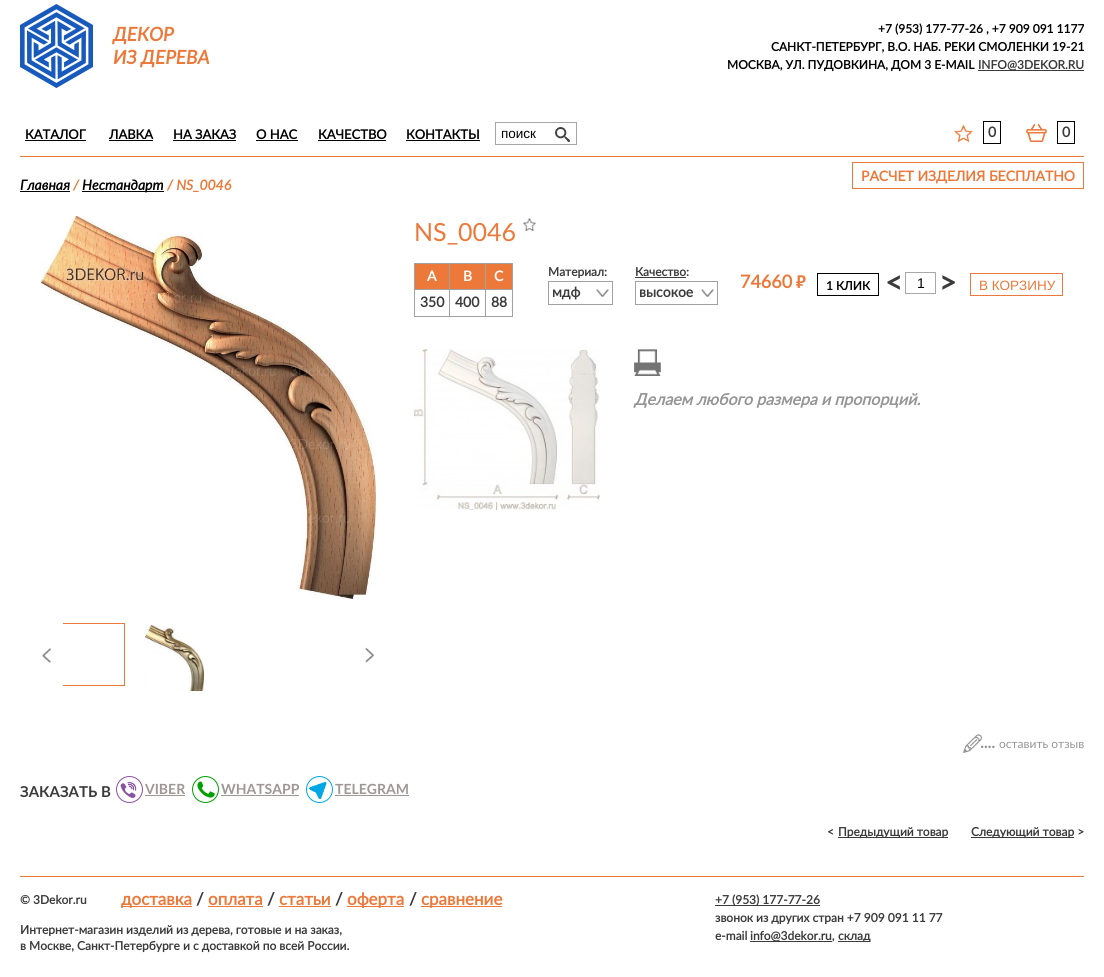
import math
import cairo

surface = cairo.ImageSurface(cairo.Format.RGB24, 1104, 977)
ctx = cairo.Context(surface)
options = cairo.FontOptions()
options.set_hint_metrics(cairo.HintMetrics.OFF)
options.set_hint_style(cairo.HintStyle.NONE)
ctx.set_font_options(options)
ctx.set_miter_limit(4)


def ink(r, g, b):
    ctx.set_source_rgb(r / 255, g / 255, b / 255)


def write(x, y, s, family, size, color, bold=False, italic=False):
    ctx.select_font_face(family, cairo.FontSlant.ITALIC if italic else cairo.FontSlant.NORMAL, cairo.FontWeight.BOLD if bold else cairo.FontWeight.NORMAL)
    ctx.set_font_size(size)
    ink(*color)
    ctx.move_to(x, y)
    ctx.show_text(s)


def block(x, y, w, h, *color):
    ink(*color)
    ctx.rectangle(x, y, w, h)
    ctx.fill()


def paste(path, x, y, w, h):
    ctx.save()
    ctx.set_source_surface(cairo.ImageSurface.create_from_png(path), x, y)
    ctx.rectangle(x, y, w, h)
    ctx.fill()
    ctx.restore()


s1 = dict(family="Lato", size=19, color=(236, 121, 58), bold=True, italic=True)
s2 = dict(family="Lato", size=12, color=(0, 0, 0), bold=True)
s3 = dict(family="Lato", size=12, color=(59, 59, 59), bold=True)
s4 = dict(family="Lato", size=13, color=(0, 0, 0), bold=True)
s5 = dict(family="Liberation Sans", size=13.5, color=(0, 0, 0))
s6 = dict(family="Lato", size=14, color=(59, 59, 59), bold=True)
s7 = dict(family="Lato", size=14, color=(236, 121, 58), bold=True)
s8 = dict(family="Lato", size=14, color=(0, 0, 0), bold=True, italic=True)
s9 = dict(family="Lato", size=14, color=(236, 121, 58), bold=True, italic=True)
s10 = dict(family="Lato", size=25, color=(236, 121, 58))
s11 = dict(family="Lato", size=14, color=(255, 255, 255), bold=True)
s12 = dict(family="Lato", size=18, color=(236, 121, 58), bold=True)
s13 = dict(family="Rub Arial", size=18, color=(236, 121, 58))
s14 = dict(family="Lato", size=30, color=(59, 59, 59), bold=True)
s15 = dict(family="Liberation Sans", size=14, color=(0, 0, 0))
s16 = dict(family="Liberation Sans", size=13.5, color=(236, 121, 58))
s17 = dict(family="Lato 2", size=16, color=(149, 149, 149), bold=True, italic=True)
s18 = dict(family="Lato", size=16, color=(149, 149, 149), bold=True)
s19 = dict(family="Lato", size=12, color=(149, 149, 149))
s20 = dict(family="Lato 2", size=15, color=(59, 59, 59), bold=True)
s21 = dict(family="Lato 2", size=14, color=(159, 150, 150), bold=True)
s22 = dict(family="Lato", size=17, color=(236, 121, 58), bold=True)
s23 = dict(family="Lato", size=17, color=(59, 59, 59), bold=True)

ink(255, 255, 255)
ctx.paint()
block(20, 156, 1064, 1, 236, 121, 58)
paste("pic1.png", 20, 4, 73, 84)
write(113, 41, "ДЕКОР", **s1)
write(113, 64, "ИЗ ДЕРЕВА", **s1)
write(878, 33, "+7 (953) 177-77-26 , +7 909 091 1177", **s2)
write(771, 51, "САНКТ-ПЕТЕРБУРГ, В.О. НАБ. РЕКИ СМОЛЕНКИ 19-21", **s2)
write(727, 69, "МОСКВА, УЛ. ПУДОВКИНА, ДОМ 3 E-MAIL", **s2)
block(978, 70, 106, 1, 59, 59, 59)
write(978, 69, "INFO@3DEKOR.RU", **s3)
write(25, 139, "КАТАЛОГ", **s4)
block(25, 140, 61, 1, 0, 0, 0)
write(109, 139, "ЛАВКА", **s4)
block(109, 140, 44, 1, 0, 0, 0)
write(173, 139, "НА ЗАКАЗ", **s4)
block(173, 140, 63, 1, 0, 0, 0)
write(256, 139, "О НАС", **s4)
block(256, 140, 42, 1, 0, 0, 0)
write(318, 139, "КАЧЕСТВО", **s4)
block(318, 140, 68, 1, 0, 0, 0)
write(406, 139, "КОНТАКТЫ", **s4)
block(406, 140, 74, 1, 0, 0, 0)
ctx.rectangle(495.5, 122.5, 81, 22)
ink(166, 166, 166)
ctx.set_line_width(1)
ctx.stroke()
write(501, 138, "поиск", **s5)
paste("pic2.png", 555, 127, 15, 15)
paste("pic3.png", 954, 124, 19, 19)
ctx.rectangle(983.5, 121.5, 17, 22)
ctx.stroke()
write(988, 137, "0", **s6)
paste("pic4.png", 1026, 124, 21, 18)
ctx.rectangle(1057.5, 121.5, 17, 22)
ink(0, 0, 0)
ctx.stroke()
write(1062, 137, "0", **s6)
ctx.rectangle(852.5, 162.5, 231, 26)
ink(236, 121, 58)
ctx.stroke()
write(861, 181, "РАСЧЕТ ИЗДЕЛИЯ БЕСПЛАТНО", **s7)
write(20, 190, "Главная", **s8)
block(20, 191, 50, 1, 0, 0, 0)
write(73, 190, "/", **s9)
block(82, 191, 82, 1, 0, 0, 0)
write(82, 190, "Нестандарт", **s8)
write(167, 190, "/ NS_0046", **s9)
paste("pic5.png", 41, 216, 335, 383)
ctx.rectangle(62.5, 623.5, 62, 62)
ctx.stroke()
block(62, 623, 1, 63, 255, 255, 255)
paste("pic6.png", 42, 648, 10, 15)
paste("pic7.png", 145, 625, 59, 66)
paste("pic8.png", 365, 647, 10, 16)
write(414, 241, "NS_0046", **s10)
paste("pic9.png", 523, 218, 13, 13)
block(414, 316, 99, 1, 161, 161, 161)
block(415, 264, 34, 25, 236, 121, 58)
block(485, 263, 28, 1, 161, 161, 161)
block(485, 289, 28, 1, 161, 161, 161)
block(485, 289, 1, 28, 161, 161, 161)
block(449, 289, 37, 1, 161, 161, 161)
block(485, 263, 1, 27, 161, 161, 161)
block(449, 263, 37, 1, 161, 161, 161)
block(449, 289, 1, 28, 161, 161, 161)
block(414, 289, 36, 1, 161, 161, 161)
block(449, 263, 1, 27, 161, 161, 161)
block(414, 263, 36, 1, 161, 161, 161)
block(414, 289, 1, 28, 161, 161, 161)
block(414, 263, 1, 27, 161, 161, 161)
write(427, 281, "A", **s11)
block(450, 264, 35, 25, 236, 121, 58)
write(463, 281, "B", **s11)
block(486, 264, 26, 25, 236, 121, 58)
block(512, 289, 1, 28, 161, 161, 161)
block(512, 263, 1, 27, 161, 161, 161)
write(494, 281, "C", **s11)
write(420, 307, "350", **s6)
write(455, 307, "400", **s6)
write(491, 307, "88", **s6)
write(548, 276, "Материал:", **s3)
paste("pic10.png", 596, 289, 13, 8)
ctx.rectangle(548.5, 281.5, 64, 23)
ink(161, 161, 161)
ctx.stroke()
write(552, 297, "мдф", **s6)
write(635, 276, "Качество:", **s3)
block(635, 277, 51, 1, 59, 59, 59)
paste("pic10.png", 701, 289, 13, 8)
ctx.rectangle(635.5, 281.5, 82, 23)
ink(161, 161, 161)
ctx.stroke()
write(639, 297, "высокое", **s6)
write(740, 288, "74660", **s12)
write(793, 288, "руб.", **s13)
ctx.rectangle(817.5, 273.5, 61, 22)
ink(0, 0, 0)
ctx.stroke()
write(826, 290, "1 КЛИК", **s2)
write(885, 293, "<", **s14)
ctx.rectangle(905.5, 272.5, 30, 21)
ink(169, 169, 169)
ctx.stroke()
write(917, 288, "1", **s15)
write(939, 293, ">", **s14)
ctx.rectangle(970.5, 273.5, 92, 22)
ink(236, 121, 58)
ctx.stroke()
write(979, 290, "В КОРЗИНУ", **s16)
paste("pic11.png", 414, 349, 186, 161)
paste("pic12.png", 634, 349, 27, 27)
write(634, 405, "Делаем любого размера и пропорций.", **s17)
paste("pic13.png", 963, 734, 19, 19)
write(980, 748, "....", **s18)
write(999, 748, "оставить отзыв", **s19)
write(20, 797, "ЗАКАЗАТЬ В", **s20)
paste("pic14.png", 120, 780, 17, 18)
ctx.arc(129.5, 789.5, 13, 0, 2 * math.pi)
ink(139, 81, 162)
ctx.stroke()
write(145, 794, "VIBER", **s21)
block(145, 795, 40, 1, 159, 150, 150)
paste("pic15.png", 197, 781, 18, 17)
ctx.arc(205.5, 789.5, 13, 0, 2 * math.pi)
ink(0, 158, 0)
ctx.stroke()
write(221, 794, "WHATSAPP", **s21)
block(221, 795, 78, 1, 159, 150, 150)
paste("pic16.png", 309, 782, 18, 19)
ctx.arc(319.5, 789.5, 13, 0, 2 * math.pi)
ink(0, 167, 228)
ctx.stroke()
write(335, 794, "TELEGRAM", **s21)
block(335, 795, 74, 1, 159, 150, 150)
write(827, 836, "<", **s3)
block(838, 837, 110, 1, 59, 59, 59)
write(838, 836, "Предыдущий товар", **s3)
block(971, 837, 103, 1, 59, 59, 59)
write(971, 836, "Следующий товар >", **s3)
block(20, 876, 1064, 1, 236, 121, 58)
write(20, 904, "© 3Dekor.ru", **s3)
block(121, 906, 71, 1, 236, 121, 58)
write(121, 905, "доставка", **s22)
write(196, 905, "/", **s23)
write(208, 905, "оплата", **s22)
block(208, 906, 55, 1, 236, 121, 58)
write(267, 905, "/", **s23)
write(279, 905, "статьи", **s22)
block(279, 906, 52, 1, 236, 121, 58)
write(335, 905, "/", **s23)
block(347, 906, 57, 1, 236, 121, 58)
write(347, 905, "оферта", **s22)
write(409, 905, "/", **s23)
block(421, 906, 81, 1, 236, 121, 58)
write(421, 905, "сравнение", **s22)
block(715, 905, 105, 1, 59, 59, 59)
write(715, 904, "+7 (953) 177-77-26", **s3)
write(715, 922, "звонок из других стран +7 909 091 11 77", **s3)
write(715, 940, "e-mail", **s3)
block(750, 941, 82, 1, 59, 59, 59)
write(750, 940, "info@3dekor.ru,", **s3)
block(838, 941, 32, 1, 59, 59, 59)
write(838, 940, "склад", **s3)
write(20, 934, "Интернет-магазин изделий из дерева, готовые и на заказ,", **s3)
write(20, 950, "в Москве, Санкт-Петербурге и с доставкой по всей России.", **s3)
surface.write_to_png("screenshot.png")
